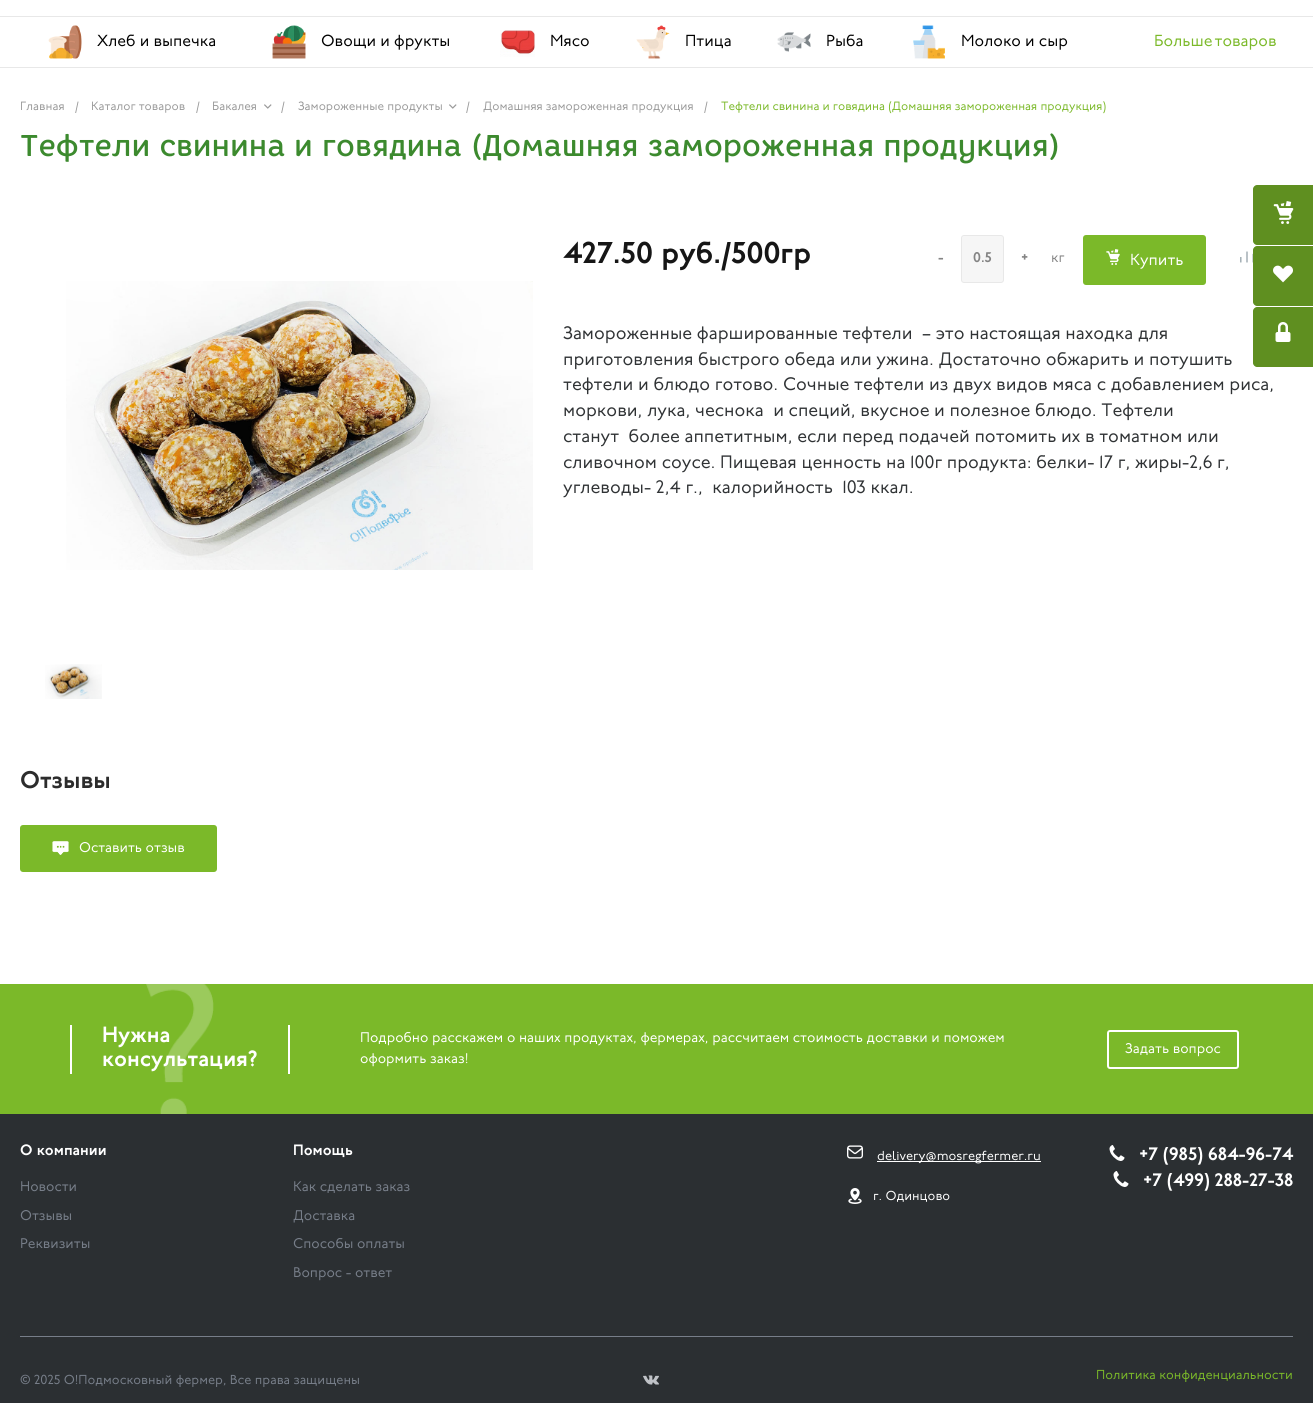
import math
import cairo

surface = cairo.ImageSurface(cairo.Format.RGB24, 1313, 1403)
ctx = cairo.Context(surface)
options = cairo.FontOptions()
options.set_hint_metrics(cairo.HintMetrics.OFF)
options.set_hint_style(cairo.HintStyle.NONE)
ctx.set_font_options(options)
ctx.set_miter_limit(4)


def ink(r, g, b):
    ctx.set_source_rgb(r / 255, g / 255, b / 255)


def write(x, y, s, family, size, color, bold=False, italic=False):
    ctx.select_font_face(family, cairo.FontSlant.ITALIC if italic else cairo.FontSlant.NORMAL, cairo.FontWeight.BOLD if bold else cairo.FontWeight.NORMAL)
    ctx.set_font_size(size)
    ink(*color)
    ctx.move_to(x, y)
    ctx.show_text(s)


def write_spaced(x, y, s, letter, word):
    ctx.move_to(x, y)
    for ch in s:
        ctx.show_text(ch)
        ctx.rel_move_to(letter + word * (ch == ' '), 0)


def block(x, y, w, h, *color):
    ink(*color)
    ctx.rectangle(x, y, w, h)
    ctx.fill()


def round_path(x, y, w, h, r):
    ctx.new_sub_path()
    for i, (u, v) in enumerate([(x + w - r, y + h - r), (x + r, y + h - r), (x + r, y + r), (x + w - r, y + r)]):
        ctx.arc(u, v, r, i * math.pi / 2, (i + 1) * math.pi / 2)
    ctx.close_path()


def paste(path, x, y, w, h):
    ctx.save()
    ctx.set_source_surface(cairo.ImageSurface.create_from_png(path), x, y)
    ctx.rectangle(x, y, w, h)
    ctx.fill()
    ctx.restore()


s1 = dict(family="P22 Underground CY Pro", size=16, color=(0, 0, 0))
s2 = dict(family="P22 Underground CY Pro", size=12, color=(154, 154, 154))
s3 = dict(family="P22 Underground CY Pro", size=12, color=(123, 185, 41))
s4 = dict(family="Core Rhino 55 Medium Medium", size=30, color=(60, 138, 46))
s5 = dict(family="P22 Underground CY Pro SemiBold", size=30, color=(22, 22, 22))
s6 = dict(family="P22 Underground CY Pro SemiBold", size=14, color=(132, 132, 132))
s7 = dict(family="P22 Underground CY Pro", size=14, color=(132, 132, 132))
s8 = dict(family="P22 Underground CY Pro", size=16, color=(255, 255, 255))
s9 = dict(family="P22 Underground CY Pro", size=18, color=(48, 51, 53))
s10 = dict(family="P22 Underground CY Pro SemiBold", size=24, color=(44, 44, 44))
s11 = dict(family="P22 Underground CY Pro", size=14, color=(255, 255, 255))
s12 = dict(family="P22 Underground CY Pro SemiBold", size=22, color=(255, 255, 255))
s13 = dict(family="P22 Underground CY Pro SemiBold", size=15, color=(255, 255, 255))
s14 = dict(family="P22 Underground CY Pro", size=14, color=(119, 126, 137))
s15 = dict(family="P22 Underground CY Pro", size=13, color=(255, 255, 255))
s16 = dict(family="P22 Underground CY Pro SemiBold", size=18, color=(255, 255, 255))
s17 = dict(family="P22 Underground CY Pro", size=13, color=(119, 126, 137))
s18 = dict(family="P22 Underground CY Pro", size=13, color=(123, 185, 41))

ink(255, 255, 255)
ctx.paint()
block(0, 16, 1313, 1, 232, 232, 232)
block(0, 67, 1313, 1, 232, 232, 232)
paste("pic1.png", 48, 25, 34, 34)
write(97, 46, "Хлеб и выпечка", **s1)
paste("pic2.png", 272, 25, 34, 34)
write(321, 46, "Овощи и фрукты", **s1)
paste("pic3.png", 500, 30, 35, 27)
write(550, 46, "Мясо", **s1)
paste("pic4.png", 636, 25, 34, 34)
write(685, 46, "Птица", **s1)
paste("pic5.png", 777, 32, 34, 20)
write(826, 46, "Рыба", **s1)
paste("pic6.png", 913, 25, 32, 34)
write(961, 46, "Молоко и сыр", **s1)
ink(123, 185, 41)
write_spaced(1154, 46, "Больше товаров", 0, -2)
write(20, 110, "Главная", **s2)
write(75, 110, "/", **s2)
write(91, 110, "Каталог товаров", **s2)
write(196, 110, "/", **s2)
write(212, 110, "Бакалея", **s2)
paste("pic7.png", 264, 104, 8, 5)
write(281, 110, "/", **s2)
write(298, 110, "Замороженные продукты", **s2)
paste("pic7.png", 449, 104, 8, 5)
write(466, 110, "/", **s2)
write(483, 110, "Домашняя замороженная продукция", **s2)
write(704, 110, "/", **s2)
write(721, 110, "Тефтели свинина и говядина (Домашняя замороженная продукция)", **s3)
write(20, 156, "Тефтели свинина и говядина (Домашняя замороженная продукция)", **s4)
paste("pic8.png", 66, 281, 467, 289)
paste("pic9.png", 45, 664, 57, 35)
write(563, 263, "427.50 руб./500гр", **s5)
write(938, 262, "-", **s6)
ink(246, 246, 246)
round_path(961.5, 235.5, 42, 47, 2.5)
ctx.fill_preserve()
ink(232, 232, 232)
ctx.set_line_width(1)
ctx.stroke()
write(973, 262, "0.5", **s6)
write(1021, 262, "+", **s6)
write(1051, 262, "кг", **s7)
ink(123, 185, 41)
round_path(1084, 236, 121, 48, 2)
ctx.fill_preserve()
ctx.set_line_width(2)
ctx.stroke()
paste("pic10.png", 1106, 249, 14, 16)
write(1130, 265, "Купить", **s8)
paste("pic11.png", 1240, 251, 13, 12)
write(563, 339, "Замороженные фаршированные тефтели  – это настоящая находка для", **s9)
write(563, 365, "приготовления быстрого обеда или ужина. Достаточно обжарить и потушить", **s9)
write(563, 390, "тефтели и блюдо готово. Сочные тефтели из двух видов мяса с добавлением риса,", **s9)
write(563, 416, "моркови, лука, чеснока  и специй, вкусное и полезное блюдо. Тефтели", **s9)
write(563, 442, "станут  более аппетитным, если перед подачей потомить их в томатном или", **s9)
write(563, 468, "сливочном соусе. Пищевая ценность на 100г продукта: белки- 17 г, жиры-2,6 г,", **s9)
write(563, 493, "углеводы- 2,4 г.,  калорийность  103 ккал.", **s9)
write(20, 788, "Отзывы", **s10)
ink(123, 185, 41)
round_path(20, 825, 197, 47, 3)
ctx.fill()
paste("pic12.png", 52, 841, 17, 14)
write(79, 852, "Оставить отзыв", **s11)
ink(95, 143, 32)
ctx.new_path()
ctx.move_to(1257, 185)
ctx.line_to(1313, 185)
ctx.line_to(1313, 245)
ctx.line_to(1257, 245)
ctx.curve_to(1255, 245, 1253, 243, 1253, 241)
ctx.line_to(1253, 189)
ctx.curve_to(1253, 187, 1255, 185, 1257, 185)
ctx.close_path()
ctx.fill()
paste("pic13.png", 1273, 201, 21, 23)
ctx.new_path()
ctx.move_to(1257, 246)
ctx.line_to(1313, 246)
ctx.line_to(1313, 306)
ctx.line_to(1257, 306)
ctx.curve_to(1255, 306, 1253, 304, 1253, 302)
ctx.line_to(1253, 250)
ctx.curve_to(1253, 248, 1255, 246, 1257, 246)
ctx.close_path()
ctx.fill()
paste("pic14.png", 1273, 265, 20, 18)
ctx.new_path()
ctx.move_to(1257, 307)
ctx.line_to(1313, 307)
ctx.line_to(1313, 367)
ctx.line_to(1257, 367)
ctx.curve_to(1255, 367, 1253, 365, 1253, 363)
ctx.line_to(1253, 311)
ctx.curve_to(1253, 309, 1255, 307, 1257, 307)
ctx.close_path()
ctx.fill()
paste("pic15.png", 1275, 322, 16, 20)
block(0, 984, 1313, 130, 123, 185, 41)
paste("pic16.png", 146, 984, 68, 130)
block(288, 1025, 2, 49, 255, 255, 255)
block(70, 1025, 2, 49, 255, 255, 255)
write(102, 1042, "Нужна", **s12)
write(102, 1066, "консультация?", **s12)
write(360, 1042, "Подробно расскажем о наших продуктах, фермерах, рассчитаем стоимость доставки и поможем", **s11)
write(360, 1063, "оформить заказ!", **s11)
round_path(1108, 1031, 130, 37, 2)
ctx.stroke()
write(1125, 1053, "Задать вопрос", **s11)
block(0, 1114, 1313, 289, 43, 47, 50)
write(20, 1155, "О компании", **s13)
write(20, 1191, "Новости", **s14)
write(20, 1220, "Отзывы", **s14)
write(20, 1248, "Реквизиты", **s14)
write(293, 1155, "Помощь", **s13)
write(293, 1191, "Как сделать заказ", **s14)
write(293, 1220, "Доставка", **s14)
write(293, 1248, "Способы оплаты", **s14)
write(293, 1277, "Вопрос - ответ", **s14)
paste("pic17.png", 847, 1145, 16, 14)
block(877, 1161, 164, 1, 255, 255, 255)
write(877, 1160, "delivery@mosregfermer.ru", **s15)
paste("pic18.png", 848, 1188, 14, 16)
write(873, 1200, "г. Одинцово", **s15)
paste("pic19.png", 1109, 1145, 16, 16)
write(1139, 1160, "+7 (985) 684-96-74", **s16)
paste("pic19.png", 1113, 1171, 16, 16)
write(1143, 1186, "+7 (499) 288-27-38", **s16)
block(20, 1336, 1273, 1, 119, 126, 137)
write(20, 1384, "© 2025 О!Подмосковный фермер, Все права защищены", **s17)
paste("pic20.png", 643, 1375, 16, 10)
write(1096, 1379, "Политика конфиденциальности", **s18)
surface.write_to_png("screenshot.png")
